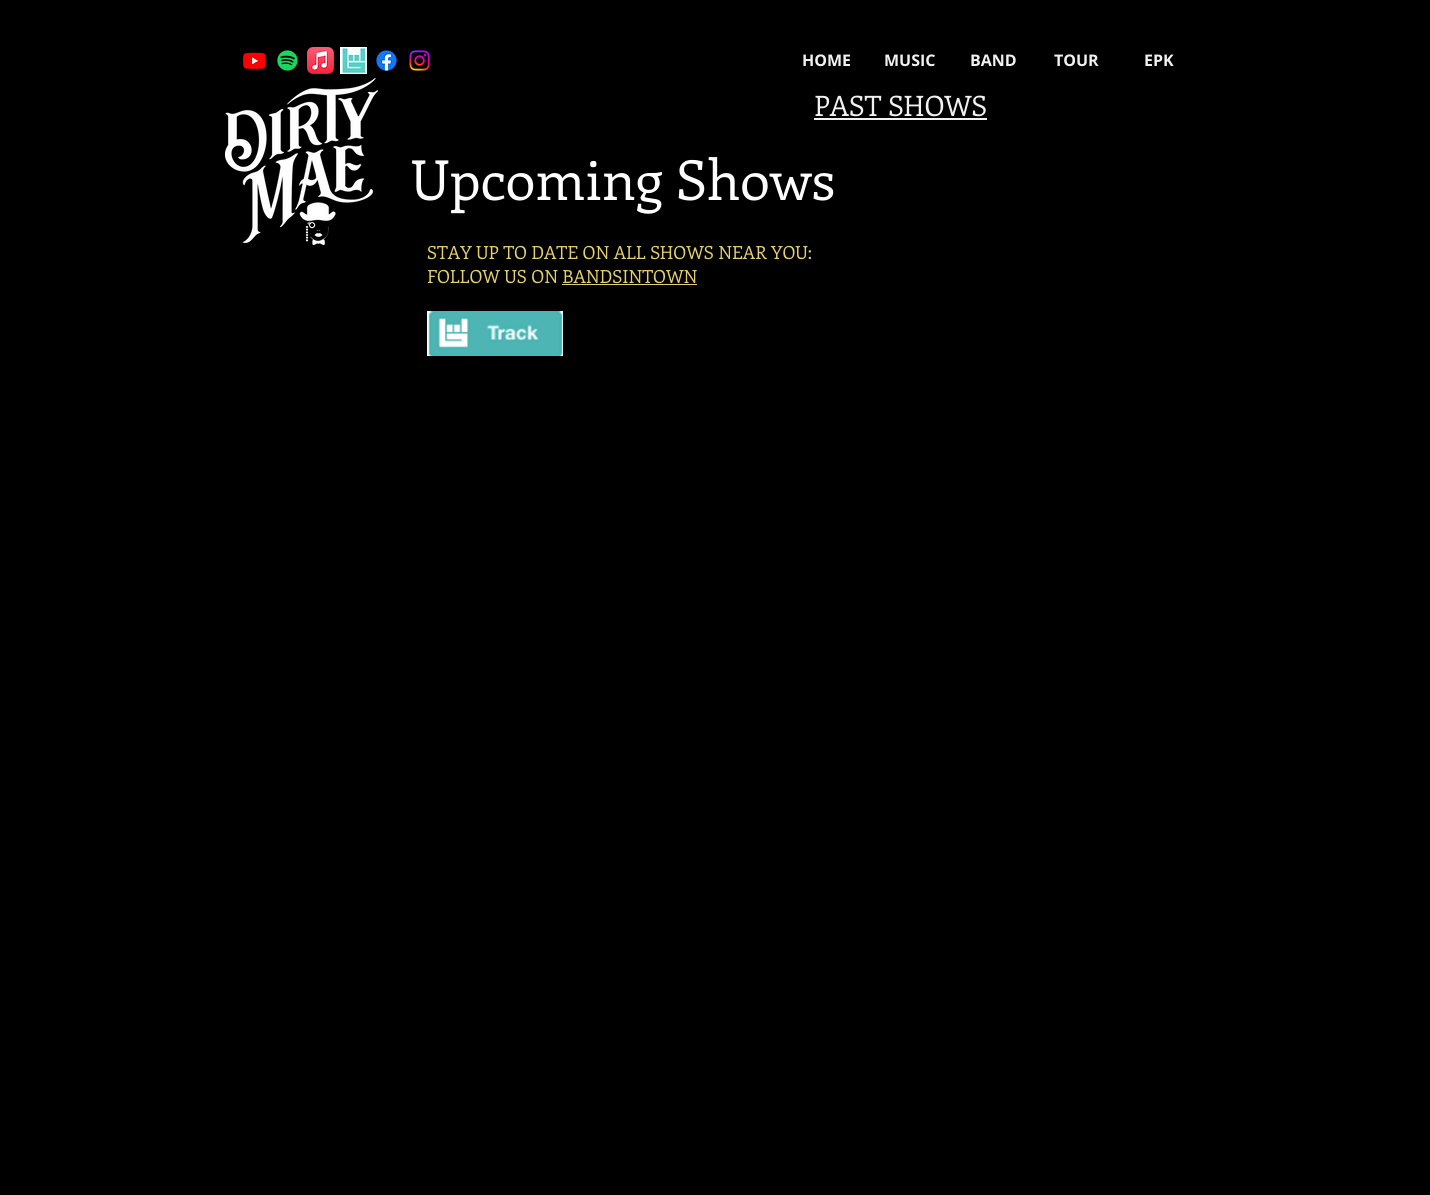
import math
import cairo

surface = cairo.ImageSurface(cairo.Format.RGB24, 1430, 1195)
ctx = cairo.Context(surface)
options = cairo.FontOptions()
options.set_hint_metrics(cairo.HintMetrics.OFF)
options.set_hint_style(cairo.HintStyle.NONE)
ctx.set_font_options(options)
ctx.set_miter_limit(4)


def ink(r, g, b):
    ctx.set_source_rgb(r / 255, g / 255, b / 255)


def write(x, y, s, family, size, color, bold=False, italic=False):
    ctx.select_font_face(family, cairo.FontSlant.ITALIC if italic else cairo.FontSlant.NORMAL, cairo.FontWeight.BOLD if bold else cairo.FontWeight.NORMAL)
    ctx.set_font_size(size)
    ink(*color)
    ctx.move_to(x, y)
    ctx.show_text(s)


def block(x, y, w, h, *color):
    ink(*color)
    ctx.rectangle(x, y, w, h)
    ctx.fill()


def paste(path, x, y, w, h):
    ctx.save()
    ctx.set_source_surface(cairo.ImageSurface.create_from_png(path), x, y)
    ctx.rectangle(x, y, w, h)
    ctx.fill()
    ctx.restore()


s1 = dict(family="Open Sans", size=16, color=(241, 241, 241), bold=True)
s2 = dict(family="Enriqueta", size=28, color=(241, 241, 241))
s3 = dict(family="Enriqueta", size=55, color=(255, 255, 255))
s4 = dict(family="Enriqueta", size=18, color=(229, 207, 110))

ink(0, 0, 0)
ctx.paint()
paste("pic1.png", 242, 52, 24, 17)
paste("pic2.png", 277, 50, 21, 21)
paste("pic3.png", 307, 47, 27, 27)
paste("pic4.png", 340, 47, 27, 27)
paste("pic5.png", 376, 50, 21, 21)
paste("pic6.png", 409, 50, 21, 21)
write(802, 66, "HOME", **s1)
write(884, 66, "MUSIC", **s1)
write(970, 66, "BAND", **s1)
write(1054, 66, "TOUR", **s1)
write(1144, 66, "EPK", **s1)
paste("pic7.png", 225, 78, 153, 167)
write(814, 116, "PAST SHOWS", **s2)
block(814, 118, 173, 2, 241, 241, 241)
write(411, 200, "Upcoming Shows", **s3)
write(427, 259, "STAY UP TO DATE ON ALL SHOWS NEAR YOU:", **s4)
write(427, 283, "FOLLOW US ON BANDSINTOWN", **s4)
block(562, 284, 135, 1, 229, 207, 110)
paste("pic8.png", 427, 311, 136, 45)
surface.write_to_png("screenshot.png")
